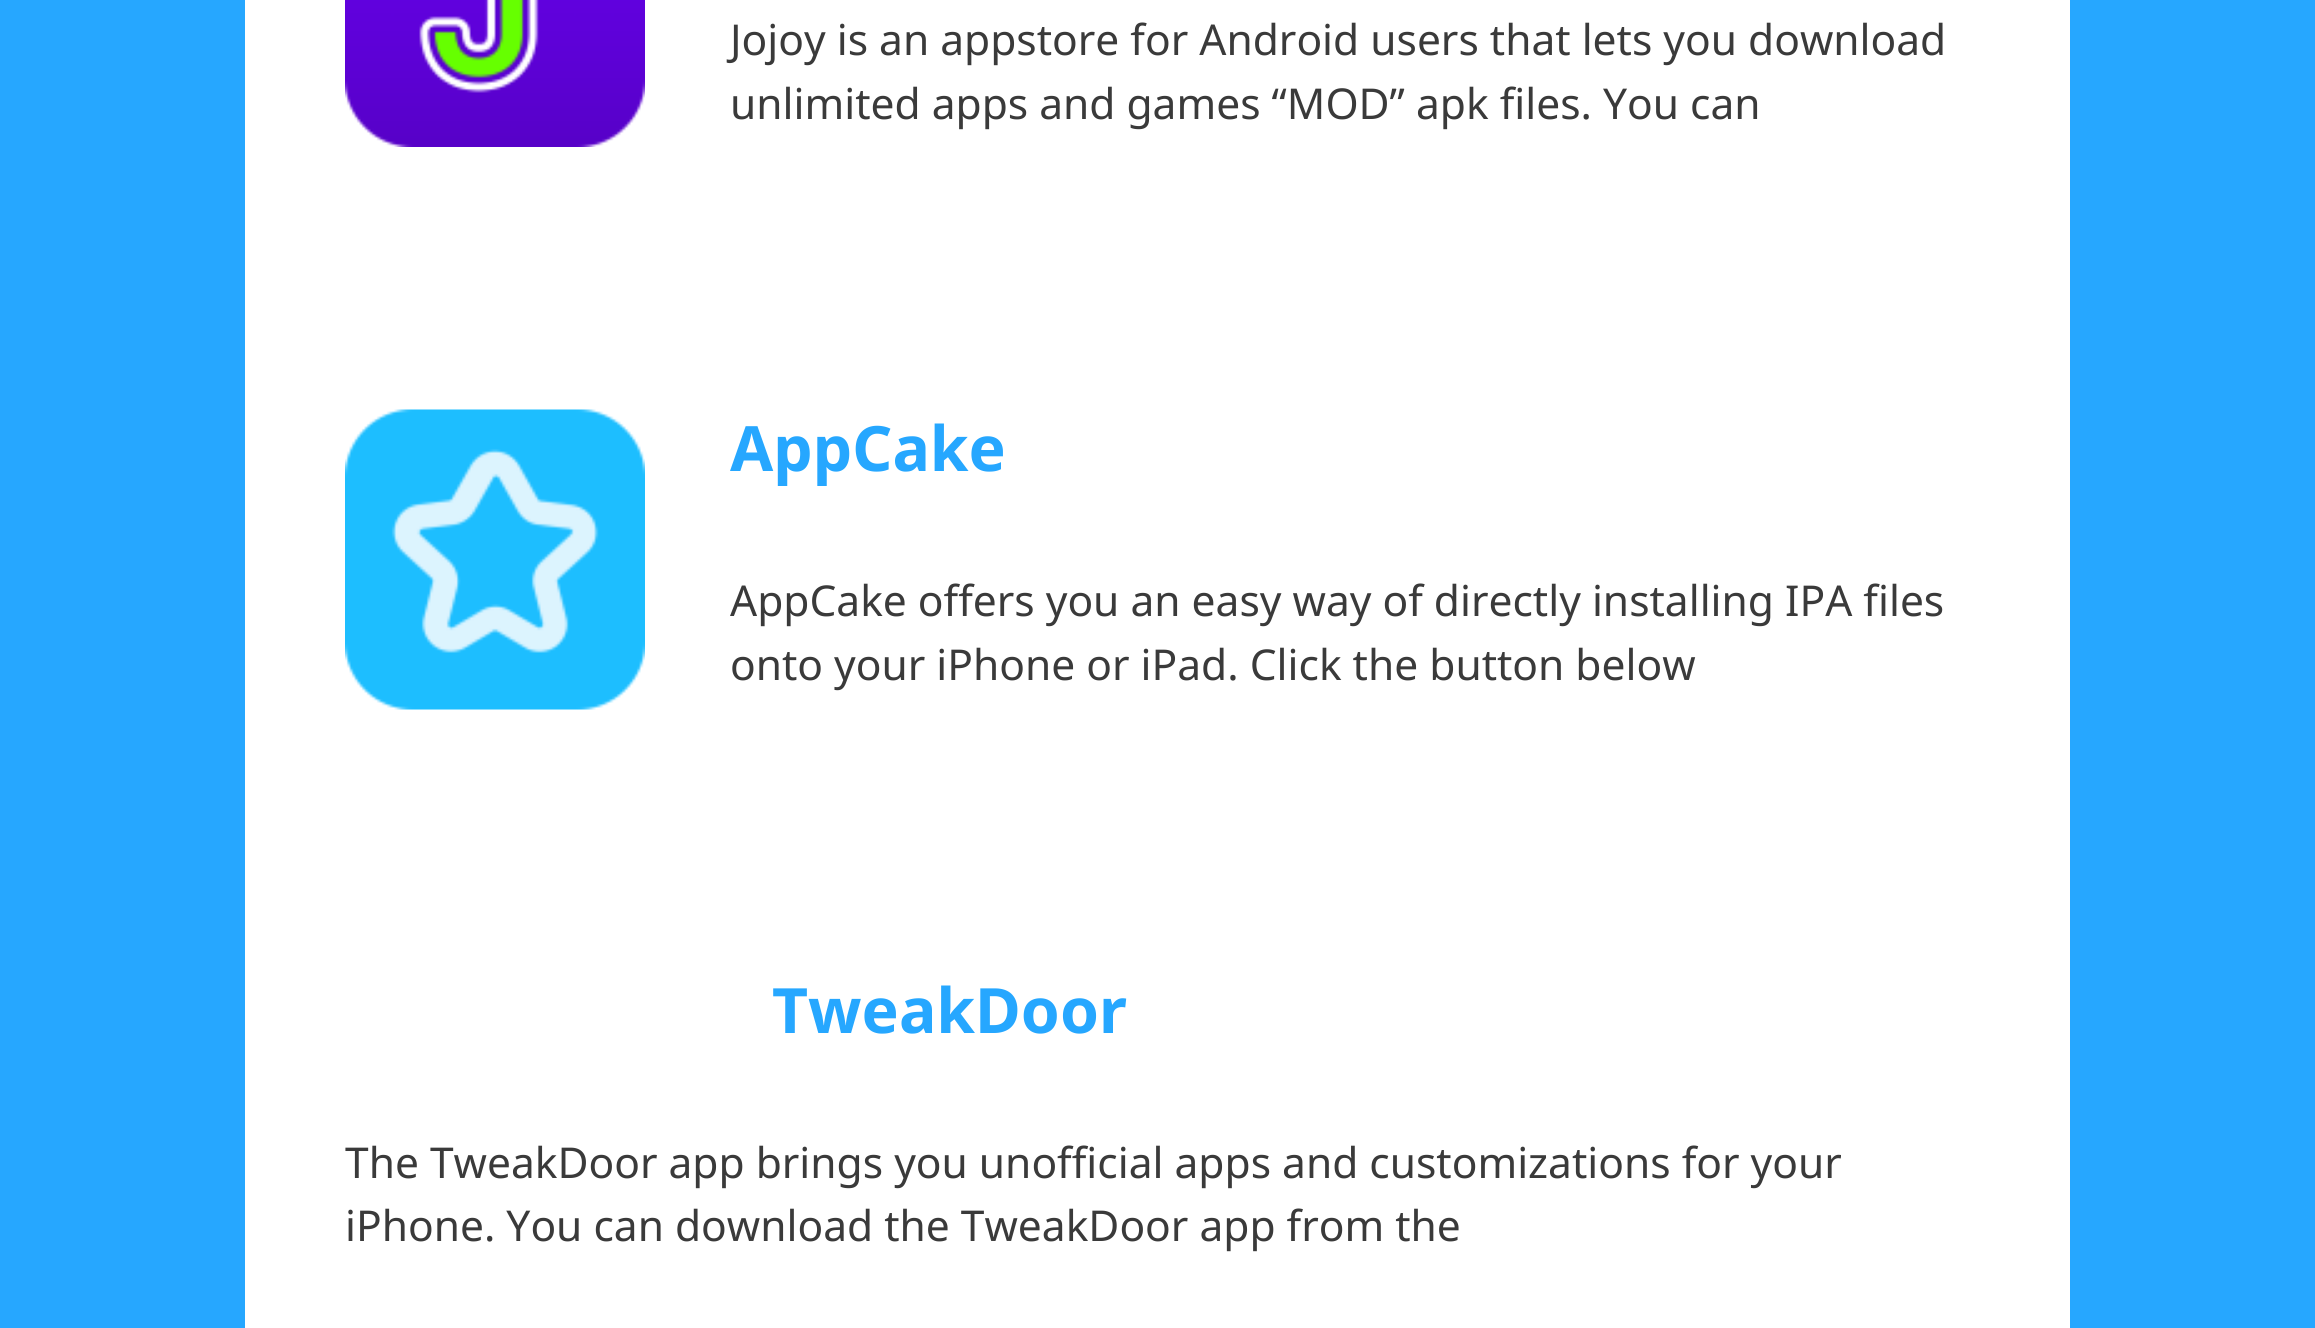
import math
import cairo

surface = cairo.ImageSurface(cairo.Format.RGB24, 2315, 1328)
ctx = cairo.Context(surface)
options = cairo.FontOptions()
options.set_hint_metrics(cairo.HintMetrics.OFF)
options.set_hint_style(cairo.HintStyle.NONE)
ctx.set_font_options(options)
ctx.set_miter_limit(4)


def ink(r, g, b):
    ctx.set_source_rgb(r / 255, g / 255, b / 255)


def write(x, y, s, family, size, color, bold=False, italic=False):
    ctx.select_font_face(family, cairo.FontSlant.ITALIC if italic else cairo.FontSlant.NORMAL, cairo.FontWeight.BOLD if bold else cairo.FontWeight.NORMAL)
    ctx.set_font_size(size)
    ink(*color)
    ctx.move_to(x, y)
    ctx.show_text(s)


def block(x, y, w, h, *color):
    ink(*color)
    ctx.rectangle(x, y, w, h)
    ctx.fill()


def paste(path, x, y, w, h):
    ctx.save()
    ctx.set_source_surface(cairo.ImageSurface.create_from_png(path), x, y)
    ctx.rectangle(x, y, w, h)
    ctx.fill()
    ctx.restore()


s1 = dict(family="Noto Sans", size=42.5, color=(58, 58, 58))
s2 = dict(family="Noto Sans", size=62.5, color=(38, 167, 255), bold=True)

ink(38, 167, 255)
ctx.paint()
block(245, 0, 1825, 1328, 255, 255, 255)
paste("pic1.png", 345, 0, 300, 147)
write(730, 55, "Jojoy is an appstore for Android users that lets you download", **s1)
write(730, 119, "unlimited apps and games “MOD” apk files. You can", **s1)
paste("pic2.png", 345, 409, 300, 301)
write(730, 471, "AppCake", **s2)
write(730, 616, "AppCake offers you an easy way of directly installing IPA files", **s1)
write(730, 680, "onto your iPhone or iPad. Click the button below", **s1)
write(772, 1033, "TweakDoor", **s2)
write(345, 1178, "The TweakDoor app brings you unofficial apps and customizations for your", **s1)
write(345, 1241, "iPhone. You can download the TweakDoor app from the", **s1)
surface.write_to_png("screenshot.png")
